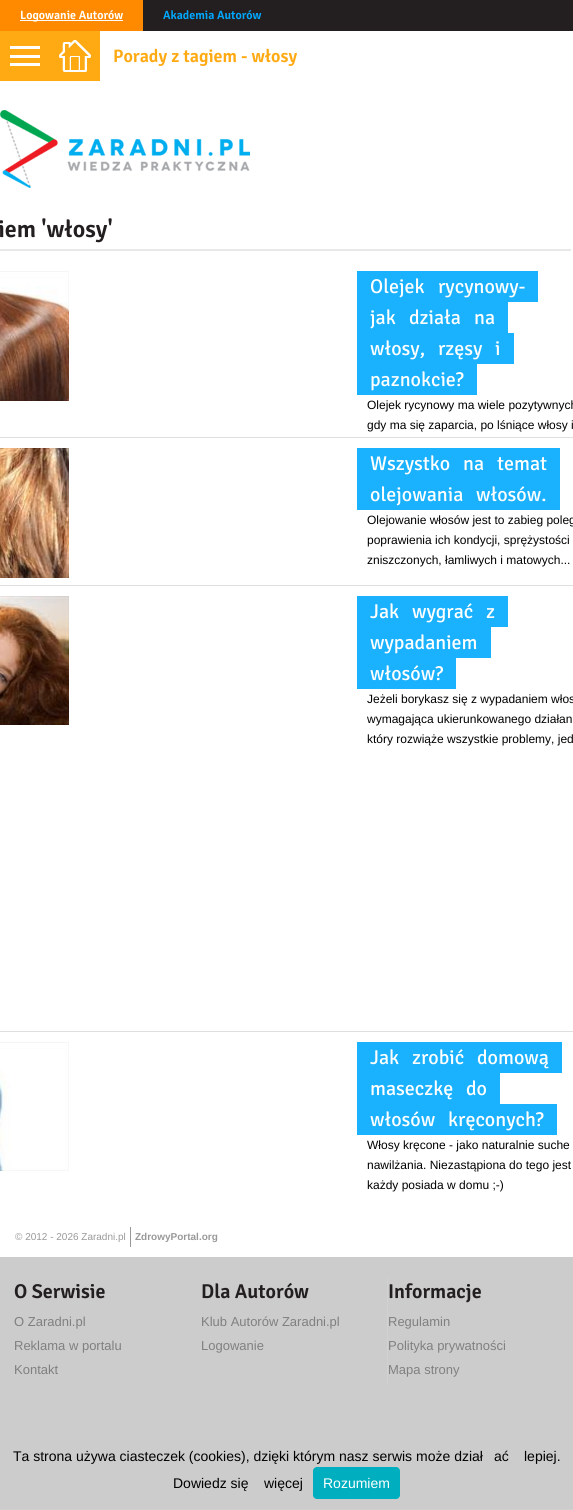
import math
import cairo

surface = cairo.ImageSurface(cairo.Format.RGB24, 573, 1510)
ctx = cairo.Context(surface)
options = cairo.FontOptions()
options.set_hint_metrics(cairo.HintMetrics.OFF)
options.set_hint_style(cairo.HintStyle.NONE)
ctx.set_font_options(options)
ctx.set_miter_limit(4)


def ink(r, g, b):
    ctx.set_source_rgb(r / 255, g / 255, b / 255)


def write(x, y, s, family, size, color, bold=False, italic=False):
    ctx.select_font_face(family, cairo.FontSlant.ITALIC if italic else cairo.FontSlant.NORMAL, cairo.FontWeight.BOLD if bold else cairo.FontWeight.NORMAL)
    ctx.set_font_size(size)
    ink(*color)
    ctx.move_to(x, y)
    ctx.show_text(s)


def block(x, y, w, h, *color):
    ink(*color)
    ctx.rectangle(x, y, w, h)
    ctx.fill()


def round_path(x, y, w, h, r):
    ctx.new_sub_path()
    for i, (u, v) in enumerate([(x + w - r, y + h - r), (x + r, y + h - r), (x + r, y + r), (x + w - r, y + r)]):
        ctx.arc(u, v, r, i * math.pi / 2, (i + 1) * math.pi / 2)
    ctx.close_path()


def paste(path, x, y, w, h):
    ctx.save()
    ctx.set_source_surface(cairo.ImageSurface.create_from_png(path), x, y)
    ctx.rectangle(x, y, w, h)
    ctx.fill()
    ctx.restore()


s1 = dict(family="Signika SemiBold", size=12, color=(255, 255, 255))
s2 = dict(family="Signika SemiBold", size=12, color=(0, 168, 255))
s3 = dict(family="Signika SemiBold", size=18, color=(255, 169, 19))
s4 = dict(family="Signika SemiBold", size=24, color=(35, 31, 32))
s5 = dict(family="Signika", size=20, color=(255, 255, 255))
s6 = dict(family="Liberation Sans", size=12, color=(0, 0, 0))
s7 = dict(family="Liberation Sans", size=10, color=(153, 153, 153))
s8 = dict(family="Liberation Sans", size=10, color=(153, 153, 153), bold=True)
s9 = dict(family="Signika SemiBold", size=20, color=(35, 31, 32))
s10 = dict(family="Liberation Sans", size=13, color=(128, 128, 128))
s11 = dict(family="Liberation Sans", size=14, color=(0, 0, 0))
s12 = dict(family="Liberation Sans", size=14, color=(255, 255, 255))

ink(204, 204, 204)
ctx.paint()
block(0, 31, 573, 1226, 255, 255, 255)
block(143, 0, 430, 31, 35, 31, 32)
block(0, 0, 143, 31, 255, 138, 0)
block(20, 20, 103, 1, 255, 255, 255)
write(20, 19, "Logowanie Autorów", **s1)
write(163, 19, "Akademia Autorów", **s2)
block(0, 31, 100, 50, 255, 169, 19)
block(10, 46, 30, 3, 255, 255, 255)
block(10, 55, 30, 3, 255, 255, 255)
block(10, 63, 30, 3, 255, 255, 255)
paste("pic1.png", 59, 40, 32, 32)
write(113, 62, "Porady z tagiem - włosy", **s3)
paste("pic2.png", 0, 110, 250, 78)
block(0, 249, 571, 2, 232, 232, 232)
write(-2, 237, "iem 'włosy'", **s4)
paste("pic3.png", 0, 271, 69, 130)
block(357, 271, 181, 31, 26, 177, 255)
write(370, 293, "Olejek", **s5)
write(438, 293, "rycynowy-", **s5)
block(357, 302, 151, 31, 26, 177, 255)
write(370, 324, "jak", **s5)
write(409, 324, "działa", **s5)
write(474, 324, "na", **s5)
block(357, 333, 157, 31, 26, 177, 255)
write(370, 355, "włosy,", **s5)
write(438, 355, "rzęsy", **s5)
write(495, 355, "i", **s5)
block(357, 364, 120, 31, 26, 177, 255)
write(370, 386, "paznokcie?", **s5)
write(367, 409, "Olejek rycynowy ma wiele pozytywnych", **s6)
write(367, 429, "gdy ma się zaparcia, po lśniące włosy i", **s6)
block(0, 437, 573, 1, 223, 223, 223)
paste("pic4.png", 0, 448, 69, 130)
block(357, 448, 203, 31, 26, 177, 255)
write(370, 470, "Wszystko", **s5)
write(463, 470, "na", **s5)
write(497, 470, "temat", **s5)
block(357, 479, 203, 31, 26, 177, 255)
write(370, 501, "olejowania", **s5)
write(476, 501, "włosów.", **s5)
write(367, 524, "Olejowanie włosów jest to zabieg poleg", **s6)
write(367, 544, "poprawienia ich kondycji, sprężystości", **s6)
write(367, 564, "zniszczonych, łamliwych i matowych...", **s6)
block(0, 585, 573, 1, 223, 223, 223)
paste("pic5.png", 0, 596, 69, 129)
block(357, 596, 151, 31, 26, 177, 255)
write(370, 618, "Jak", **s5)
write(412, 618, "wygrać", **s5)
write(486, 618, "z", **s5)
block(357, 627, 134, 31, 26, 177, 255)
write(370, 649, "wypadaniem", **s5)
block(357, 658, 99, 31, 26, 177, 255)
write(370, 680, "włosów?", **s5)
write(367, 703, "Jeżeli borykasz się z wypadaniem włos", **s6)
write(367, 723, "wymagająca ukierunkowanego działan", **s6)
write(367, 743, "który rozwiąże wszystkie problemy, jed", **s6)
block(0, 1031, 573, 1, 223, 223, 223)
paste("pic6.png", 0, 1042, 69, 129)
block(357, 1042, 205, 31, 26, 177, 255)
write(370, 1064, "Jak", **s5)
write(412, 1064, "zrobić", **s5)
write(477, 1064, "domową", **s5)
block(357, 1073, 143, 31, 26, 177, 255)
write(370, 1095, "maseczkę", **s5)
write(466, 1095, "do", **s5)
block(357, 1104, 200, 31, 26, 177, 255)
write(370, 1126, "włosów", **s5)
write(448, 1126, "kręconych?", **s5)
write(367, 1149, "Włosy kręcone - jako naturalnie suche", **s6)
write(367, 1169, "nawilżania. Niezastąpiona do tego jest", **s6)
write(367, 1189, "każdy posiada w domu ;-)", **s6)
write(15, 1240, "© 2012 - 2026 Zaradni.pl", **s7)
block(130, 1227, 1, 20, 153, 153, 153)
write(135, 1240, "ZdrowyPortal.org", **s8)
write(14, 1298, "O Serwisie", **s9)
write(14, 1326, "O Zaradni.pl", **s10)
write(14, 1350, "Reklama w portalu", **s10)
write(14, 1374, "Kontakt", **s10)
write(201, 1298, "Dla Autorów", **s9)
write(201, 1326, "Klub Autorów Zaradni.pl", **s10)
write(201, 1350, "Logowanie", **s10)
block(387, 1277, 1, 108, 209, 209, 209)
write(388, 1298, "Informacje", **s9)
write(388, 1326, "Regulamin", **s10)
write(388, 1350, "Polityka prywatności", **s10)
write(388, 1374, "Mapa strony", **s10)
block(0, 1509, 573, 1, 211, 208, 208)
write(13, 1461, "Ta strona używa ciasteczek (cookies), dzięki którym nasz serwis może dział", **s11)
write(494, 1461, "ać", **s11)
write(524, 1461, "lepiej.", **s11)
write(173, 1488, "Dowiedz się", **s11)
write(264, 1488, "więcej", **s11)
ink(0, 175, 191)
round_path(313, 1467, 87, 32, 4)
ctx.fill()
write(323, 1488, "Rozumiem", **s12)
surface.write_to_png("screenshot.png")
